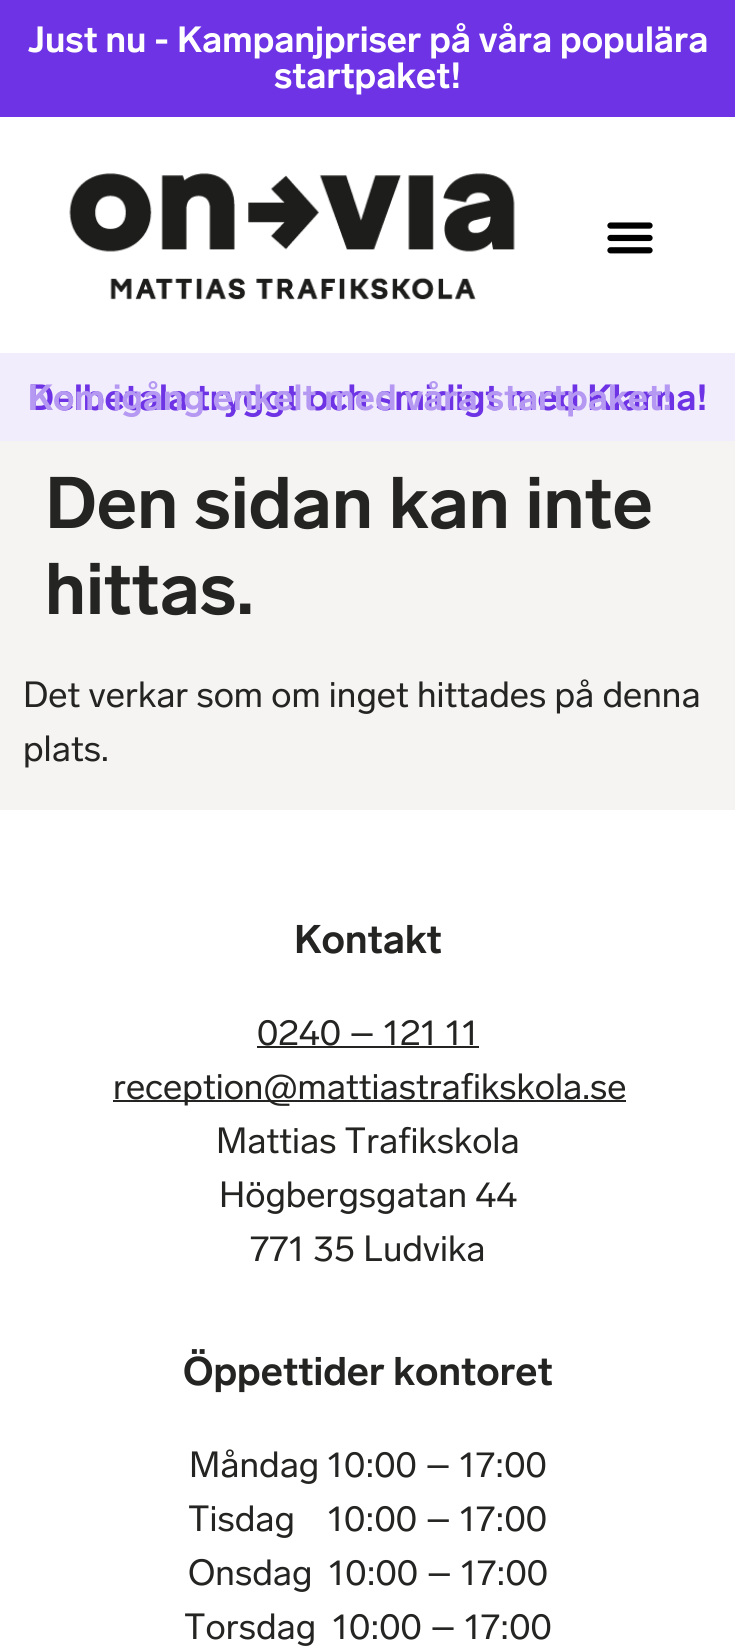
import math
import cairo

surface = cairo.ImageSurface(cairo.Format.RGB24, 735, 1649)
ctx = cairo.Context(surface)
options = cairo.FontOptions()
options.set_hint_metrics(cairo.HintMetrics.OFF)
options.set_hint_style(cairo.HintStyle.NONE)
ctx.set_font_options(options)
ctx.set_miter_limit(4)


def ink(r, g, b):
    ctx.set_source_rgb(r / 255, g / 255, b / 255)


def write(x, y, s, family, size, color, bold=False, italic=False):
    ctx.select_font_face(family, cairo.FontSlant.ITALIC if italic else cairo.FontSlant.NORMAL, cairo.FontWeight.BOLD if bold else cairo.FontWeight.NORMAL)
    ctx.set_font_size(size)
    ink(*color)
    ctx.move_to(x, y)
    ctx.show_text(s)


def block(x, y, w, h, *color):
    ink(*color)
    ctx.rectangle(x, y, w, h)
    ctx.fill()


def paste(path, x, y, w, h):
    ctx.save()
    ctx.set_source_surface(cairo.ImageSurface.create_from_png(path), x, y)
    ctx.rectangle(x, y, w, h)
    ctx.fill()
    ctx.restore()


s1 = dict(family="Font", size=36, color=(255, 255, 255), bold=True)
s2 = dict(family="Font", size=36, color=(110, 51, 229), bold=True)
s3 = dict(family="Font", size=36, color=(181, 152, 242), bold=True)
s4 = dict(family="Font", size=72, color=(36, 36, 34), bold=True)
s5 = dict(family="Font", size=36, color=(36, 36, 34))
s6 = dict(family="Font", size=39.5, color=(36, 36, 34), bold=True)

ink(246, 244, 243)
ctx.paint()
block(0, 0, 735, 117, 110, 51, 229)
write(28, 52, "Just nu - Kampanjpriser på våra populära", **s1)
write(274, 88, "startpaket!", **s1)
block(0, 117, 735, 236, 255, 255, 255)
paste("pic1.png", 69, 173, 446, 127)
paste("pic2.png", 607, 222, 46, 32)
block(0, 353, 735, 88, 242, 237, 253)
write(28, 410, "Delbetala tryggt och smidigt med Klarna!", **s2)
write(28, 410, "Kom igång enkelt med våra startpaket!", **s3)
write(45, 528, "Den sidan kan inte", **s4)
write(45, 614, "hittas.", **s4)
write(23, 707, "Det verkar som om inget hittades på denna", **s5)
write(23, 761, "plats.", **s5)
block(0, 810, 735, 839, 255, 255, 255)
write(294, 953, "Kontakt", **s6)
write(257, 1045, "0240 – 121 11", **s5)
block(257, 1046, 222, 2, 36, 36, 34)
block(113, 1100, 513, 2, 36, 36, 34)
write(113, 1099, "reception@mattiastrafikskola.se", **s5)
write(216, 1153, "Mattias Trafikskola", **s5)
write(219, 1207, "Högbergsgatan 44", **s5)
write(250, 1261, "771 35 Ludvika", **s5)
write(183, 1385, "Öppettider kontoret", **s6)
write(189, 1477, "Måndag 10:00 – 17:00", **s5)
write(188, 1531, "Tisdag    10:00 – 17:00", **s5)
write(188, 1585, "Onsdag  10:00 – 17:00", **s5)
write(184, 1639, "Torsdag  10:00 – 17:00", **s5)
surface.write_to_png("screenshot.png")
